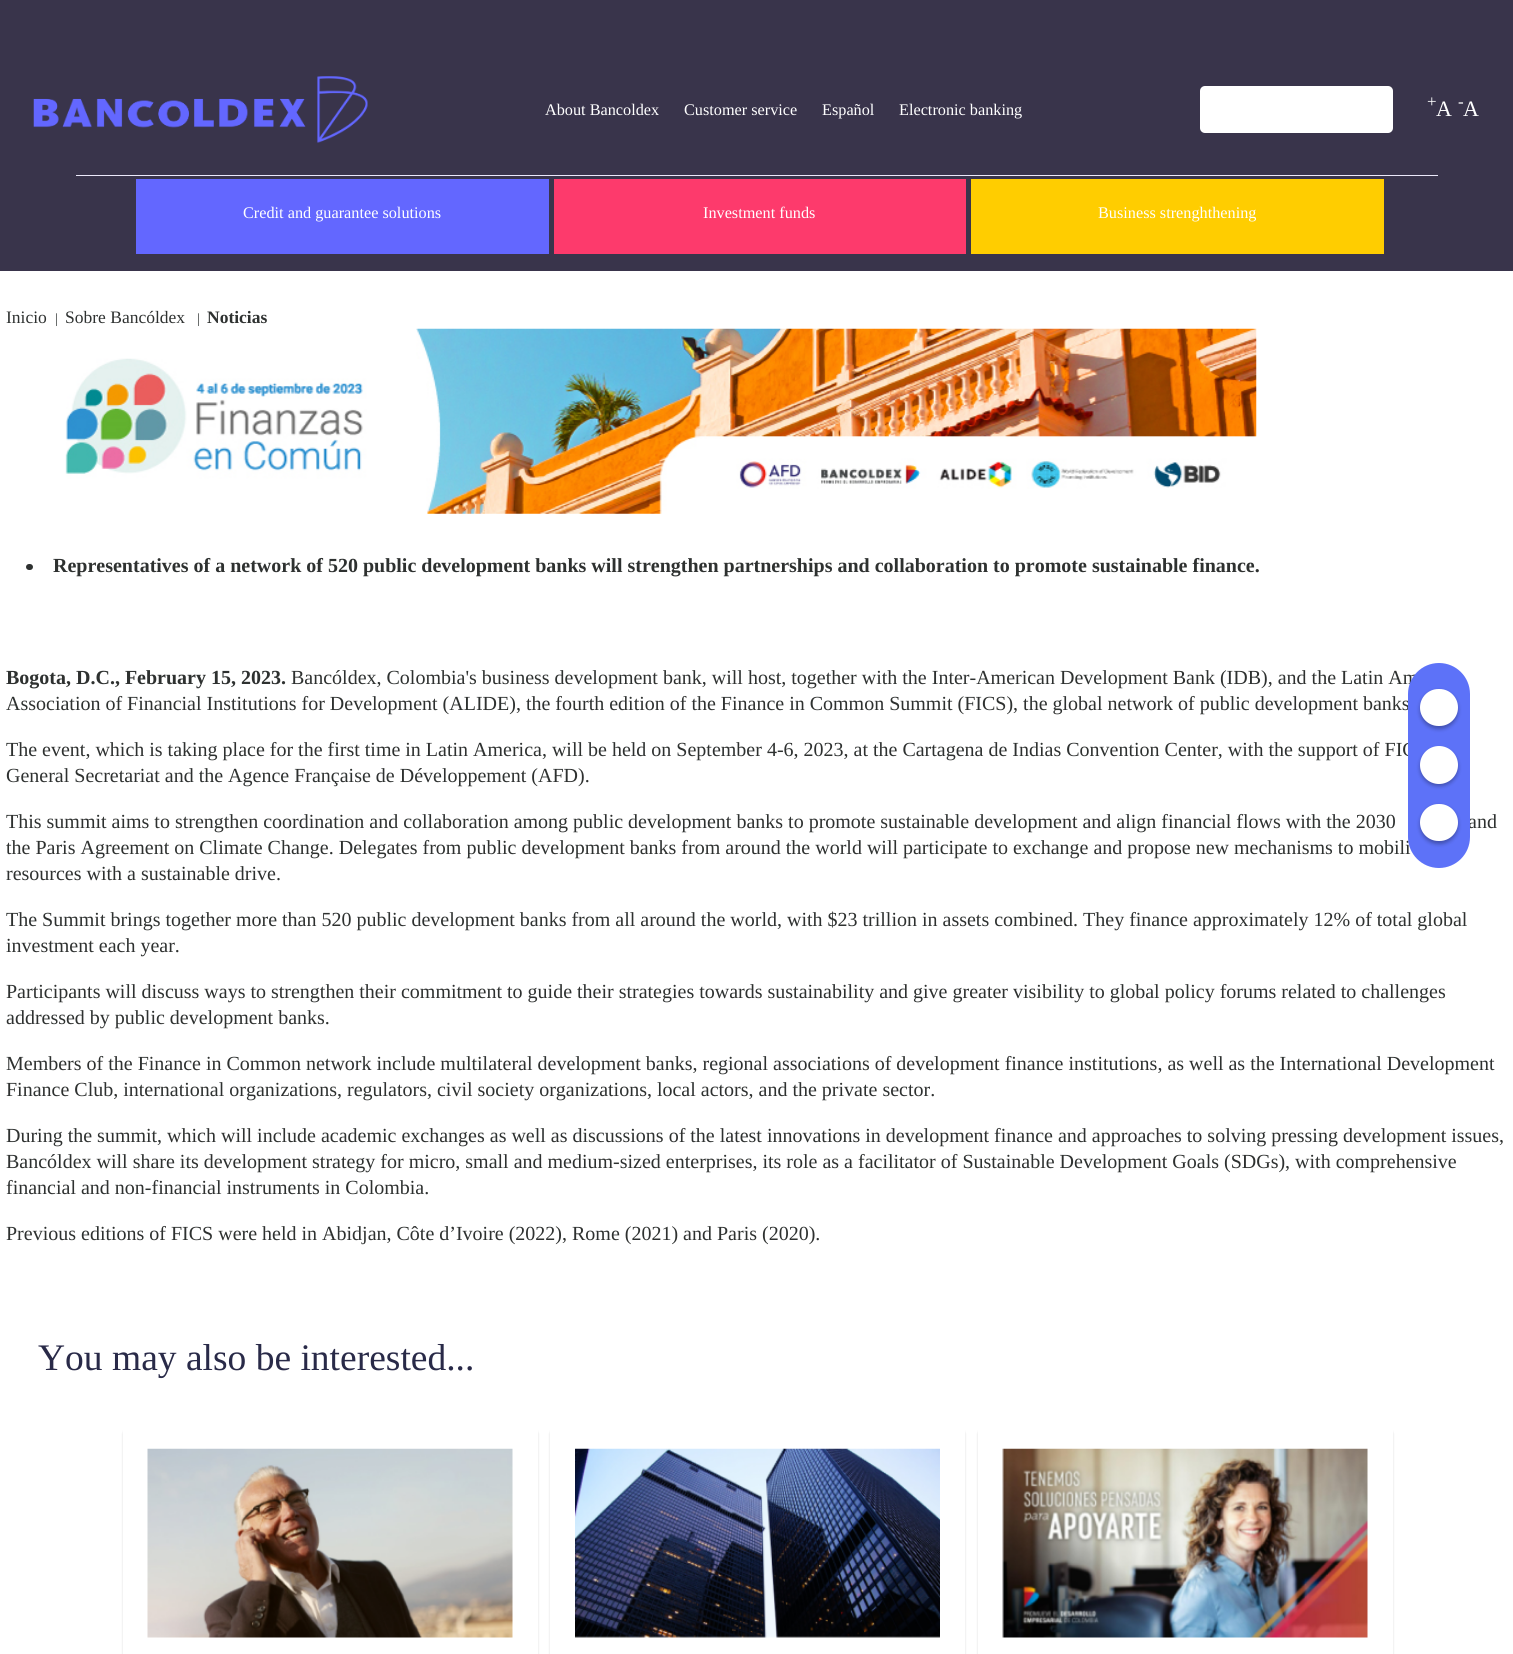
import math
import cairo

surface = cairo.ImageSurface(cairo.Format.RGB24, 1513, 1654)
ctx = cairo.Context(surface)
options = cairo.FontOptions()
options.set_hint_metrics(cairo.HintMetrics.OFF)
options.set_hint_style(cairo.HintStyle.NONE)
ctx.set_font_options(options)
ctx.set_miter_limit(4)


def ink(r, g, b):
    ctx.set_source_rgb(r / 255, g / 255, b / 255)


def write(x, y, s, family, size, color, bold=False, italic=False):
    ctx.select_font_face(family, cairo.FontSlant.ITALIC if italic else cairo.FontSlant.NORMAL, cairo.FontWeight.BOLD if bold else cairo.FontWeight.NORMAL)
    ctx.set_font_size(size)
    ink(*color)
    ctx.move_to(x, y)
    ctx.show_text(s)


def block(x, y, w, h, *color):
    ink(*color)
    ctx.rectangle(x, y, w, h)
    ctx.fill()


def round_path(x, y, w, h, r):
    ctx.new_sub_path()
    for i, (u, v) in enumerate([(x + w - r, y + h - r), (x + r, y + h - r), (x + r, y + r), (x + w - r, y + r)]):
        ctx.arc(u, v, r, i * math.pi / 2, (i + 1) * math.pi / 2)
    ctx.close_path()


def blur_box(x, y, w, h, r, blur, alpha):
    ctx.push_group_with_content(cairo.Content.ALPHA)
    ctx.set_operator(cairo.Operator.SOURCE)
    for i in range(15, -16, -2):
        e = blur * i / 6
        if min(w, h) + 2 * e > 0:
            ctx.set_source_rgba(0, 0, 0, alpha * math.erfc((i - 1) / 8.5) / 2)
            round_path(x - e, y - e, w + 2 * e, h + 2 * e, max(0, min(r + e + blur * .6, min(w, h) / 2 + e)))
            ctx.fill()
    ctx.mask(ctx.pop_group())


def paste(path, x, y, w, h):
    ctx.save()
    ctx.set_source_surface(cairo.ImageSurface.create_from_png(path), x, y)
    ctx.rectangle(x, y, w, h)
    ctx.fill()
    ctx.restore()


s1 = dict(family="Liberation Serif", size=16.25, color=(255, 255, 255))
s2 = dict(family="Liberation Serif", size=17, color=(255, 255, 255))
s3 = dict(family="Liberation Serif", size=22, color=(255, 255, 255))
s4 = dict(family="Liberation Serif", size=17.5, color=(46, 49, 48))
s5 = dict(family="Liberation Serif", size=14, color=(46, 49, 48))
s6 = dict(family="Liberation Serif", size=17.5, color=(46, 49, 48), bold=True)
s7 = dict(family="Liberation Serif", size=20, color=(46, 49, 48), bold=True)
s8 = dict(family="Liberation Serif", size=20, color=(46, 49, 48))
s9 = dict(family="Liberation Serif", size=37.5, color=(41, 42, 72))

ink(255, 255, 255)
ctx.paint()
block(0, 0, 1513, 271, 57, 52, 75)
paste("pic1.png", 33, 76, 335, 67)
write(545, 115, "About Bancoldex", **s1)
write(684, 115, "Customer service", **s1)
write(822, 115, "Español", **s1)
write(899, 115, "Electronic banking", **s1)
round_path(1200, 86, 193, 47, 5)
ctx.fill()
write(1427, 107, "+", **s2)
write(1436, 116, "A", **s3)
write(1458, 107, "-", **s2)
write(1463, 116, "A", **s3)
block(76, 175, 1362, 1, 236, 233, 250)
block(136, 179, 413, 75, 99, 103, 255)
write(243, 218, "Credit and guarantee solutions", **s1)
block(554, 179, 412, 75, 253, 58, 108)
write(703, 218, "Investment funds", **s1)
block(971, 179, 413, 75, 255, 205, 0)
write(1098, 218, "Business strenghthening", **s1)
write(6, 323, "Inicio", **s4)
write(55, 323, "|", **s5)
write(65, 323, "Sobre Bancóldex", **s4)
write(197, 323, "|", **s5)
write(207, 323, "Noticias", **s6)
paste("pic2.png", 65, 328, 1192, 186)
round_path(26, 564, 7, 6, 3)
ctx.fill()
write(53, 572, "Representatives of a network of 520 public development banks will strengthen partnerships and collaboration to promote sustainable finance.", **s7)
write(6, 684, "Bogota, D.C., February 15, 2023.", **s7)
write(291, 684, "Bancóldex, Colombia's business development bank, will host, together with the Inter-American Development Bank (IDB), and the Latin Am", **s8)
write(6, 710, "Association of Financial Institutions for Development (ALIDE), the fourth edition of the Finance in Common Summit (FICS), the global network of public development banks", **s8)
write(6, 756, "The event, which is taking place for the first time in Latin America, will be held on September 4-6, 2023, at the Cartagena de Indias Convention Center, with the support of FIC", **s8)
write(6, 782, "General Secretariat and the Agence Française de Développement (AFD).", **s8)
write(6, 828, "This summit aims to strengthen coordination and collaboration among public development banks to promote sustainable development and align financial flows with the 2030", **s8)
write(1468, 828, "and", **s8)
write(6, 854, "the Paris Agreement on Climate Change. Delegates from public development banks from around the world will participate to exchange and propose new mechanisms to mobili", **s8)
write(6, 880, "resources with a sustainable drive.", **s8)
write(6, 926, "The Summit brings together more than 520 public development banks from all around the world, with $23 trillion in assets combined. They finance approximately 12% of total global", **s8)
write(6, 952, "investment each year.", **s8)
write(6, 998, "Participants will discuss ways to strengthen their commitment to guide their strategies towards sustainability and give greater visibility to global policy forums related to challenges", **s8)
write(6, 1024, "addressed by public development banks.", **s8)
write(6, 1070, "Members of the Finance in Common network include multilateral development banks, regional associations of development finance institutions, as well as the International Development", **s8)
write(6, 1096, "Finance Club, international organizations, regulators, civil society organizations, local actors, and the private sector.", **s8)
write(6, 1142, "During the summit, which will include academic exchanges as well as discussions of the latest innovations in development finance and approaches to solving pressing development issues,", **s8)
write(6, 1168, "Bancóldex will share its development strategy for micro, small and medium-sized enterprises, its role as a facilitator of Sustainable Development Goals (SDGs), with comprehensive", **s8)
write(6, 1194, "financial and non-financial instruments in Colombia.", **s8)
write(6, 1240, "Previous editions of FICS were held in Abidjan, Côte d’Ivoire (2022), Rome (2021) and Paris (2020).", **s8)
ink(93, 114, 248)
round_path(1408, 663, 62, 205, 31)
ctx.fill()
ink(0, 0, 0)
blur_box(1420, 691, 38, 38, 19, 2, 0.3)
ink(255, 255, 255)
round_path(1420, 689, 38, 37, 18.5)
ctx.fill()
ink(0, 0, 0)
blur_box(1420, 749, 38, 37, 18.5, 2, 0.3)
ink(255, 255, 255)
ctx.arc(1439, 765, 19, 0, 2 * math.pi)
ctx.fill()
ink(0, 0, 0)
blur_box(1420, 806, 38, 38, 19, 2, 0.3)
ink(255, 255, 255)
round_path(1420, 804, 38, 37, 18.5)
ctx.fill()
write(38, 1370, "You may also be interested...", **s9)
ink(0, 0, 0)
blur_box(123, 1429, 415, 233, 5, 1, 0.15)
ink(255, 255, 255)
round_path(123, 1424, 415, 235, 5)
ctx.fill()
paste("pic3.png", 147, 1448, 366, 190)
ctx.save()
ctx.set_fill_rule(cairo.FillRule.EVEN_ODD)
ctx.new_path()
ctx.move_to(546, 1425)
ctx.line_to(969, 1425)
ctx.line_to(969, 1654)
ctx.line_to(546, 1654)
ctx.close_path()
ctx.move_to(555, 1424)
ctx.line_to(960, 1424)
ctx.curve_to(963, 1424, 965, 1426, 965, 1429)
ctx.line_to(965, 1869)
ctx.curve_to(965, 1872, 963, 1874, 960, 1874)
ctx.line_to(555, 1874)
ctx.curve_to(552, 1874, 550, 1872, 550, 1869)
ctx.line_to(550, 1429)
ctx.curve_to(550, 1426, 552, 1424, 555, 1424)
ctx.close_path()
ctx.clip()
ink(0, 0, 0)
blur_box(550, 1429, 415, 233, 5, 1, 0.15)
ctx.restore()
paste("pic4.png", 575, 1448, 365, 190)
ink(0, 0, 0)
blur_box(978, 1429, 415, 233, 5, 1, 0.15)
ink(255, 255, 255)
round_path(978, 1424, 415, 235, 5)
ctx.fill()
paste("pic5.png", 1002, 1448, 366, 190)
surface.write_to_png("screenshot.png")
